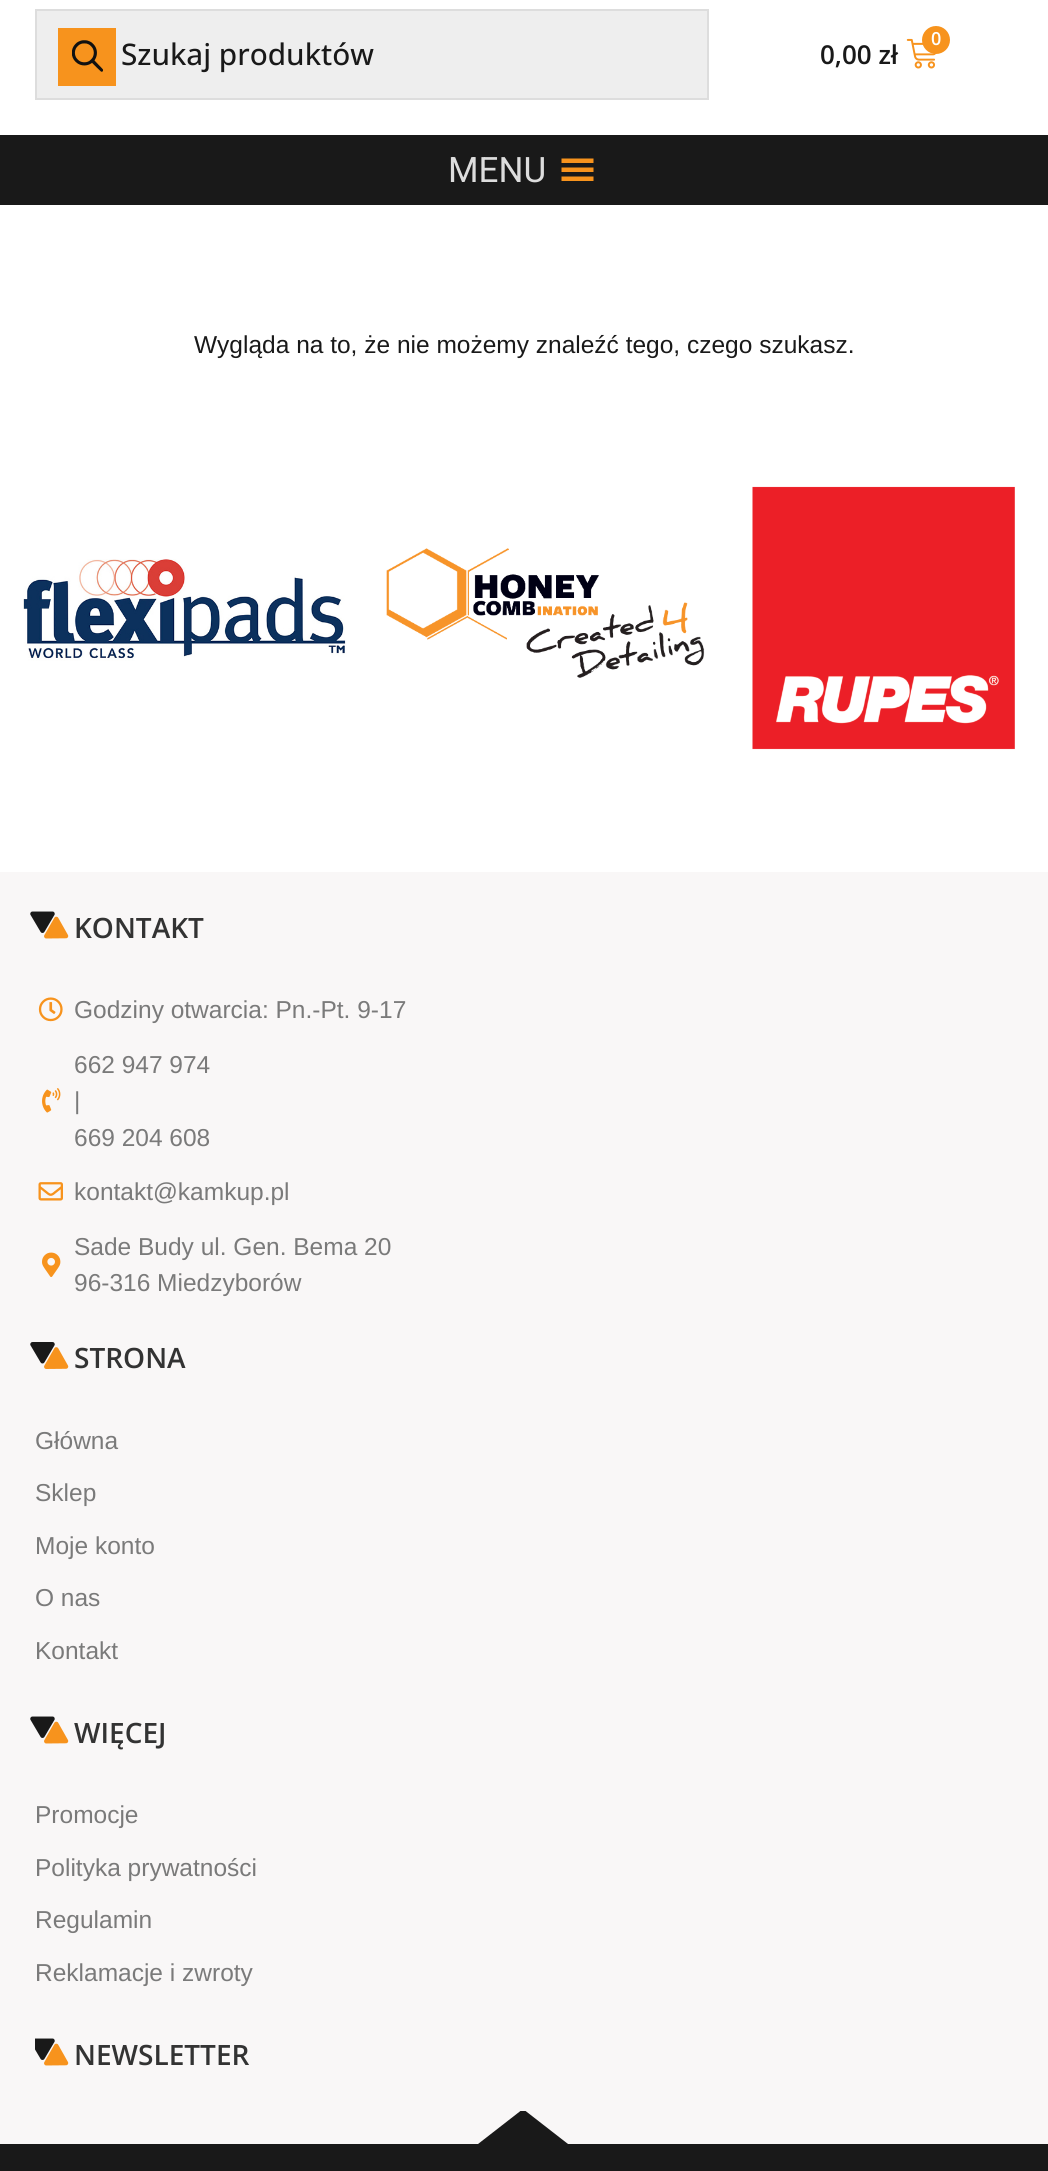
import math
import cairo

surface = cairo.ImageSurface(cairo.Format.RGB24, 1048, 2171)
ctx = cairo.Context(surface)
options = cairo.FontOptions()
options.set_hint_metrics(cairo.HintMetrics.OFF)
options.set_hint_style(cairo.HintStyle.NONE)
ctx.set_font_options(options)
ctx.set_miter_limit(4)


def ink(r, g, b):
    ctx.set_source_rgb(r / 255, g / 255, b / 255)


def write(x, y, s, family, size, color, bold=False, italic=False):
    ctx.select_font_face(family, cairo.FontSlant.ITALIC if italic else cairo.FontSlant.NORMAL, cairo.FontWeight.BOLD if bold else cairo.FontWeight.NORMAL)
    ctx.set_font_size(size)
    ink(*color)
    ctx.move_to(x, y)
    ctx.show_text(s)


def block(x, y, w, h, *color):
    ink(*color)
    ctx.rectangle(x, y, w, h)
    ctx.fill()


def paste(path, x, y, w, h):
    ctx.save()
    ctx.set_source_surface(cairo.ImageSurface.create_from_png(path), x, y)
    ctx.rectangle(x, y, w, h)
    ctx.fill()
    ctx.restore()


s1 = dict(family="Open Sans Medium", size=29.75, color=(25, 25, 25))
s2 = dict(family="Open Sans SemiBold", size=18, color=(255, 255, 255))
s3 = dict(family="Open Sans SemiBold", size=26, color=(25, 25, 25))
s4 = dict(family="Roboto", size=35, color=(221, 221, 221))
s5 = dict(family="Liberation Sans", size=24.5, color=(25, 25, 25))
s6 = dict(family="Open Sans SemiBold", size=28, color=(51, 51, 51))
s7 = dict(family="Liberation Sans", size=24.5, color=(122, 122, 122))

ink(255, 255, 255)
ctx.paint()
ink(238, 238, 238)
ctx.rectangle(36, 10, 672, 89)
ctx.fill_preserve()
ink(221, 221, 221)
ctx.stroke()
block(58, 28, 58, 58, 247, 147, 29)
paste("pic1.png", 72, 40, 31, 32)
write(121, 65, "Szukaj produktów", **s1)
paste("pic2.png", 906, 38, 31, 31)
ink(247, 147, 29)
ctx.arc(936, 40, 14, 0, 2 * math.pi)
ctx.fill()
write(931, 45, "0", **s2)
write(820, 64, "0,00 zł", **s3)
block(0, 135, 1048, 70, 25, 25, 25)
write(448, 182, "MENU", **s4)
ink(247, 147, 29)
ctx.new_path()
ctx.move_to(561.5, 181)
ctx.line_to(593.5, 181)
ctx.line_to(593.5, 176.5)
ctx.line_to(561.5, 176.5)
ctx.close_path()
ctx.move_to(561.5, 158.5)
ctx.line_to(561.5, 163)
ctx.line_to(593.5, 163)
ctx.line_to(593.5, 158.5)
ctx.close_path()
ctx.move_to(561.5, 172)
ctx.line_to(593.5, 172)
ctx.line_to(593.5, 167.5)
ctx.line_to(561.5, 167.5)
ctx.close_path()
ctx.fill()
write(194, 353, "Wygląda na to, że nie możemy znaleźć tego, czego szukasz.", **s5)
paste("pic3.png", 23, 559, 324, 102)
paste("pic4.png", 386, 548, 319, 130)
paste("pic5.png", 752, 486, 263, 264)
block(0, 872, 1048, 1239, 249, 247, 247)
paste("pic7.png", 44, 916, 25, 23)
paste("pic6.png", 30, 911, 25, 22)
write(74, 938, "KONTAKT", **s6)
paste("pic8.png", 38, 997, 25, 25)
write(74, 1018, "Godziny otwarcia: Pn.-Pt. 9-17", **s7)
paste("pic9.png", 42, 1088, 19, 25)
write(74, 1073, "662 947 974", **s7)
write(74, 1109, "|", **s7)
write(74, 1146, "669 204 608", **s7)
paste("pic10.png", 38, 1182, 25, 19)
write(74, 1200, "kontakt@kamkup.pl", **s7)
paste("pic11.png", 42, 1252, 19, 25)
write(74, 1255, "Sade Budy ul. Gen. Bema 20", **s7)
write(74, 1291, "96-316 Miedzyborów", **s7)
paste("pic13.png", 44, 1347, 25, 22)
paste("pic12.png", 30, 1342, 25, 22)
write(74, 1368, "STRONA", **s6)
write(35, 1449, "Główna", **s7)
write(35, 1501, "Sklep", **s7)
write(35, 1554, "Moje konto", **s7)
write(35, 1606, "O nas", **s7)
write(35, 1659, "Kontakt", **s7)
paste("pic7.png", 44, 1721, 25, 23)
paste("pic6.png", 30, 1716, 25, 22)
write(74, 1743, "WIĘCEJ", **s6)
write(35, 1823, "Promocje", **s7)
write(35, 1876, "Polityka prywatności", **s7)
write(35, 1928, "Regulamin", **s7)
write(35, 1981, "Reklamacje i zwroty", **s7)
paste("pic7.png", 44, 2043, 25, 23)
paste("pic14.png", 35, 2038, 20, 22)
write(74, 2065, "NEWSLETTER", **s6)
block(0, 2111, 1048, 60, 25, 25, 25)
ink(249, 247, 247)
ctx.new_path()
ctx.move_to(478, 2144)
ctx.line_to(523, 2109)
ctx.line_to(568, 2144)
ctx.line_to(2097, 2144)
ctx.line_to(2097, 2109)
ctx.line_to(-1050, 2109)
ctx.line_to(-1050, 2144)
ctx.fill()
surface.write_to_png("screenshot.png")
